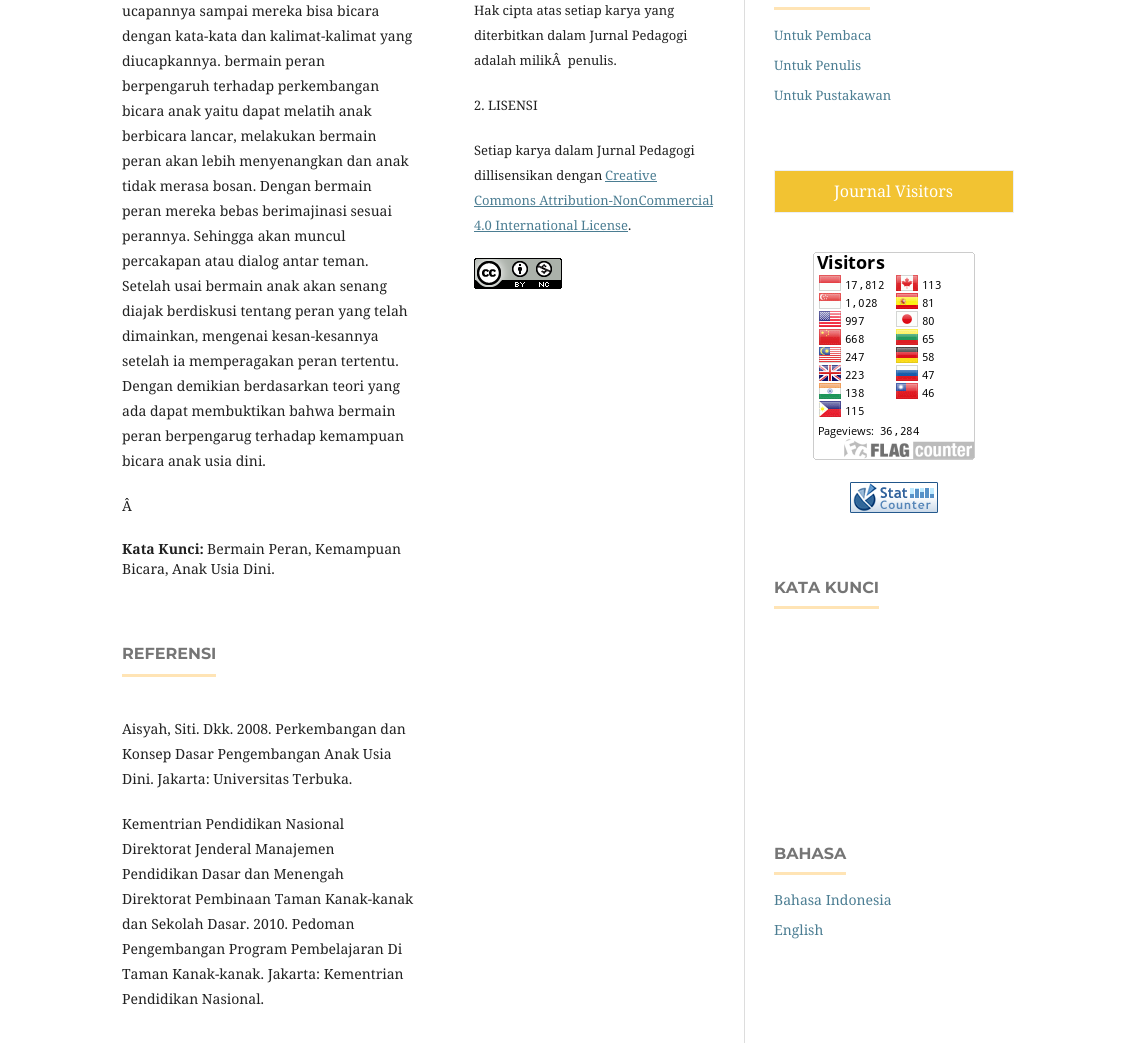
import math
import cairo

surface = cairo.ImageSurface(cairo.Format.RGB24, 1135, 1043)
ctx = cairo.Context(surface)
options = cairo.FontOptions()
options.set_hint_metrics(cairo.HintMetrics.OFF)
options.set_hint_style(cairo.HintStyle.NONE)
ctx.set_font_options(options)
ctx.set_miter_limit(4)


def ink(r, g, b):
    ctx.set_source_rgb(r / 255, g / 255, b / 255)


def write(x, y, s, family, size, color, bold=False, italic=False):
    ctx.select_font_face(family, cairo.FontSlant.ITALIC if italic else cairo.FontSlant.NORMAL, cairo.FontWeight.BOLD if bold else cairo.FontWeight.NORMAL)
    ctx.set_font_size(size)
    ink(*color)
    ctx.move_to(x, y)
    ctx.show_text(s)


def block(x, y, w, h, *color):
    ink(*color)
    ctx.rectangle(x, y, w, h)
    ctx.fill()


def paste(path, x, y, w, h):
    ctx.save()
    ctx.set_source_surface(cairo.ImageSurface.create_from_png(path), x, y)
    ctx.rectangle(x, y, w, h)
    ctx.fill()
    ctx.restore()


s1 = dict(family="Noto Serif", size=14, color=(33, 33, 33))
s2 = dict(family="Noto Serif", size=14, color=(33, 33, 33), bold=True)
s3 = dict(family="Montserrat", size=16, color=(117, 117, 117), bold=True)
s4 = dict(family="Noto Serif", size=13, color=(33, 33, 33))
s5 = dict(family="Noto Serif", size=13, color=(75, 125, 146))
s6 = dict(family="Noto Serif", size=16, color=(255, 255, 255))
s7 = dict(family="Noto Serif", size=14, color=(75, 125, 146))

ink(255, 255, 255)
ctx.paint()
write(122, 16, "ucapannya sampai mereka bisa bicara", **s1)
write(122, 41, "dengan kata-kata dan kalimat-kalimat yang", **s1)
write(122, 66, "diucapkannya. bermain peran", **s1)
write(122, 91, "berpengaruh terhadap perkembangan", **s1)
write(122, 116, "bicara anak yaitu dapat melatih anak", **s1)
write(122, 141, "berbicara lancar, melakukan bermain", **s1)
write(122, 166, "peran akan lebih menyenangkan dan anak", **s1)
write(122, 191, "tidak merasa bosan. Dengan bermain", **s1)
write(122, 216, "peran mereka bebas berimajinasi sesuai", **s1)
write(122, 241, "perannya. Sehingga akan muncul", **s1)
write(122, 266, "percakapan atau dialog antar teman.", **s1)
write(122, 291, "Setelah usai bermain anak akan senang", **s1)
write(122, 316, "diajak berdiskusi tentang peran yang telah", **s1)
write(122, 341, "dimainkan, mengenai kesan-kesannya", **s1)
write(122, 366, "setelah ia memperagakan peran tertentu.", **s1)
write(122, 391, "Dengan demikian berdasarkan teori yang", **s1)
write(122, 416, "ada dapat membuktikan bahwa bermain", **s1)
write(122, 441, "peran berpengarug terhadap kemampuan", **s1)
write(122, 466, "bicara anak usia dini.", **s1)
write(122, 511, "Â", **s1)
write(122, 554, "Kata Kunci:", **s2)
write(207, 554, "Bermain Peran, Kemampuan", **s1)
write(122, 574, "Bicara, Anak Usia Dini.", **s1)
block(122, 674, 94, 3, 255, 228, 181)
write(122, 659, "REFERENSI", **s3)
write(122, 734, "Aisyah, Siti. Dkk. 2008. Perkembangan dan", **s1)
write(122, 759, "Konsep Dasar Pengembangan Anak Usia", **s1)
write(122, 784, "Dini. Jakarta: Universitas Terbuka.", **s1)
write(122, 829, "Kementrian Pendidikan Nasional", **s1)
write(122, 854, "Direktorat Jenderal Manajemen", **s1)
write(122, 879, "Pendidikan Dasar dan Menengah", **s1)
write(122, 904, "Direktorat Pembinaan Taman Kanak-kanak", **s1)
write(122, 929, "dan Sekolah Dasar. 2010. Pedoman", **s1)
write(122, 954, "Pengembangan Program Pembelajaran Di", **s1)
write(122, 979, "Taman Kanak-kanak. Jakarta: Kementrian", **s1)
write(122, 1004, "Pendidikan Nasional.", **s1)
write(474, 15, "Hak cipta atas setiap karya yang", **s4)
write(474, 40, "diterbitkan dalam Jurnal Pedagogi", **s4)
write(474, 65, "adalah milikÂ  penulis.", **s4)
write(474, 110, "2. LISENSI", **s4)
write(474, 155, "Setiap karya dalam Jurnal Pedagogi", **s4)
write(474, 180, "dillisensikan dengan", **s4)
write(605, 180, "Creative", **s5)
block(605, 181, 52, 1, 75, 125, 146)
write(474, 205, "Commons Attribution-NonCommercial", **s5)
block(474, 206, 239, 1, 75, 125, 146)
write(474, 230, "4.0 International License", **s5)
block(474, 231, 154, 1, 75, 125, 146)
write(628, 230, ".", **s4)
paste("pic1.png", 474, 258, 88, 31)
block(744, 0, 1, 1043, 221, 221, 221)
block(774, 7, 96, 3, 255, 228, 181)
write(774, 40, "Untuk Pembaca", **s5)
write(774, 70, "Untuk Penulis", **s5)
write(774, 100, "Untuk Pustakawan", **s5)
ink(242, 195, 50)
ctx.rectangle(774.5, 170.5, 239, 42)
ctx.fill_preserve()
ink(236, 239, 245)
ctx.set_line_width(1)
ctx.stroke()
write(834, 197, "Journal Visitors", **s6)
paste("pic2.png", 813, 252, 162, 208)
paste("pic3.png", 850, 482, 88, 31)
block(774, 606, 105, 3, 255, 228, 181)
write(774, 593, "KATA KUNCI", **s3)
block(774, 872, 72, 3, 255, 228, 181)
write(774, 859, "BAHASA", **s3)
write(774, 905, "Bahasa Indonesia", **s7)
write(774, 935, "English", **s7)
surface.write_to_png("screenshot.png")
